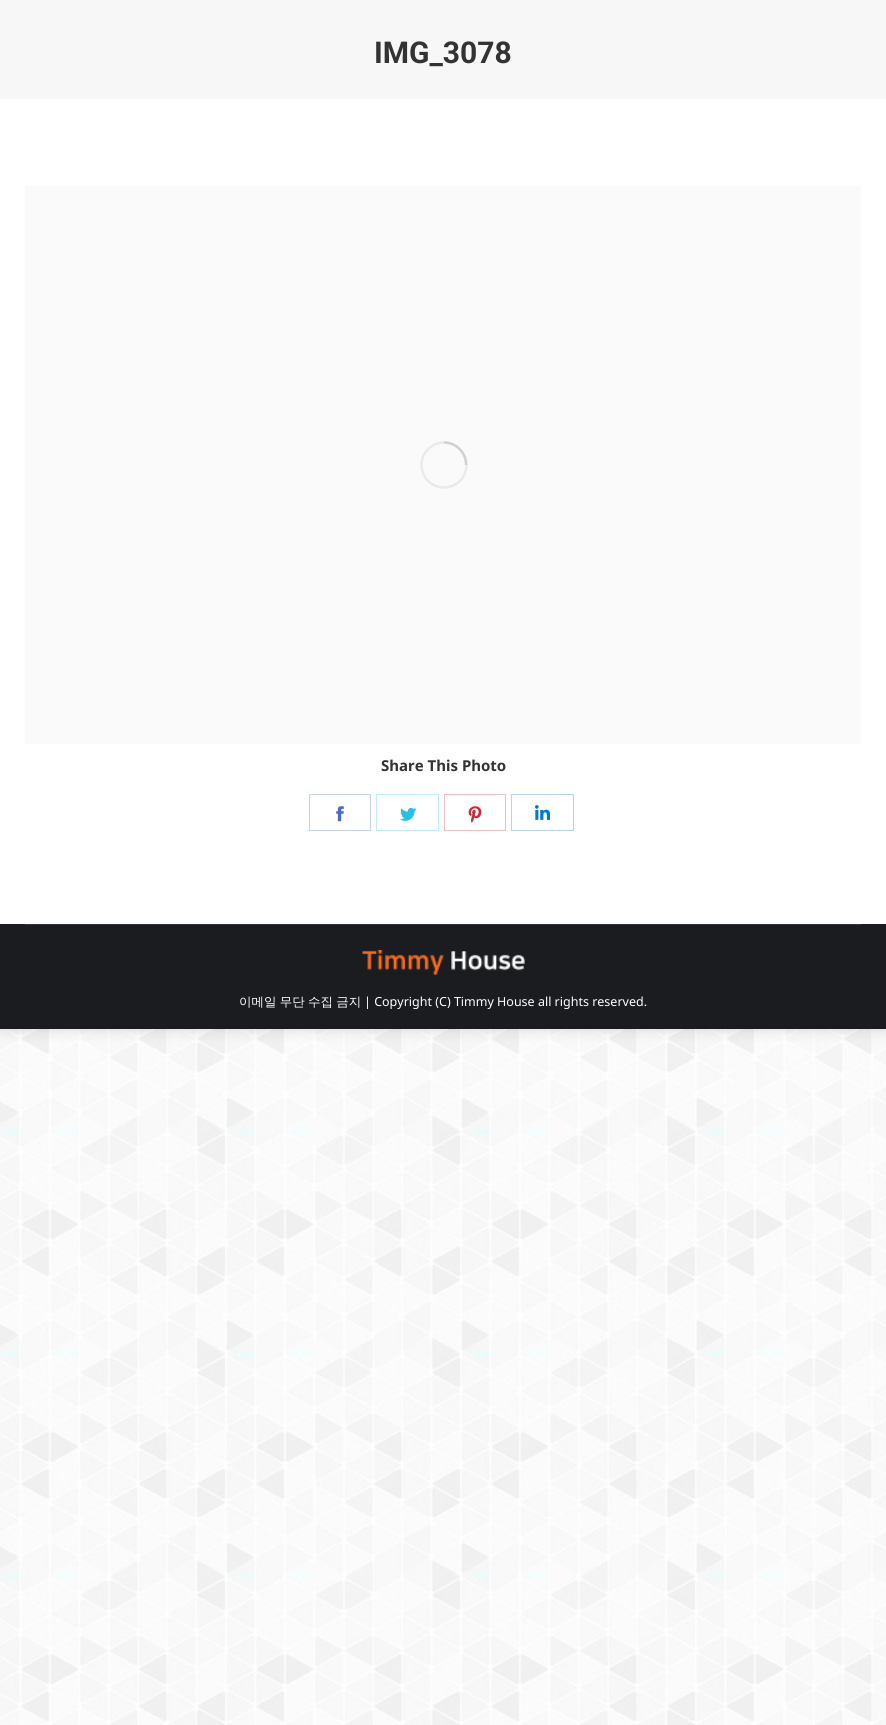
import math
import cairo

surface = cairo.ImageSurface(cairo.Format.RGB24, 886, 1725)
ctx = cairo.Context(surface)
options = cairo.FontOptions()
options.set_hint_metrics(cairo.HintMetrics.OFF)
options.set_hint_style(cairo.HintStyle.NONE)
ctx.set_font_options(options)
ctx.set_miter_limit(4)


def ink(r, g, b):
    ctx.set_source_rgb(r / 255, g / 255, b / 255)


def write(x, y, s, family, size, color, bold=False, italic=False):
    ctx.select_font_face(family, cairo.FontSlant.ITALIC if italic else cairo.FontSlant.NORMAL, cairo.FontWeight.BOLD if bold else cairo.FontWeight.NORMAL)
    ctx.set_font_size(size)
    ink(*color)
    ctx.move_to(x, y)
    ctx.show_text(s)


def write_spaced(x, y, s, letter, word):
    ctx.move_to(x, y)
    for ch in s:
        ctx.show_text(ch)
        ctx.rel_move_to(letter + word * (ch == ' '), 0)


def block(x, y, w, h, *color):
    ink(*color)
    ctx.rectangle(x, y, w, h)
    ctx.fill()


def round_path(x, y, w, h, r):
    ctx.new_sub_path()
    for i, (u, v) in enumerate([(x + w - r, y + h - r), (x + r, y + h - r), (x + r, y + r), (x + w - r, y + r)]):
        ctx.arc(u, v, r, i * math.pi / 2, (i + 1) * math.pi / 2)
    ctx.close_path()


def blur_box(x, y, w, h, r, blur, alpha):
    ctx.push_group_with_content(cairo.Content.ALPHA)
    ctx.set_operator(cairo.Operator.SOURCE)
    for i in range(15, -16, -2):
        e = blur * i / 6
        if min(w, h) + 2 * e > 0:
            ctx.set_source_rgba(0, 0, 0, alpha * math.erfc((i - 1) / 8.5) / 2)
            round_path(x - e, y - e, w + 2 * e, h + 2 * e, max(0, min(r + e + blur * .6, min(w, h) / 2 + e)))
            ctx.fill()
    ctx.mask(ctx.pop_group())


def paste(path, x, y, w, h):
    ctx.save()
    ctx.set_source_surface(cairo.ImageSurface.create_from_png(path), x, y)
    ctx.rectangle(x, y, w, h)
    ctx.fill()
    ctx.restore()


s1 = dict(family="Roboto", size=30, color=(51, 51, 51), bold=True)
s2 = dict(family="Noto Sans", size=15, color=(51, 51, 51), bold=True)
s3 = dict(family="Noto Sans", size=12.5, color=(255, 255, 255))

ink(255, 255, 255)
ctx.paint()
paste("pic1.png", 0, 1029, 886, 696)
ink(0, 0, 0)
blur_box(0, 0, 886, 1029, 0, 7.5, 0.15)
block(0, 99, 886, 825, 255, 255, 255)
block(0, 0, 886, 99, 247, 247, 247)
write(374, 63, "IMG_3078", **s1)
block(25, 186, 836, 558, 250, 250, 250)
ctx.new_path()
ctx.arc(444, 465, 22.5, 0, 2 * math.pi)
ink(234, 234, 235)
ctx.set_line_width(2.5)
ctx.stroke()
ctx.new_path()
ctx.move_to(466, 465)
ctx.curve_to(466, 452.5, 456, 442.5, 444, 442.5)
ctx.set_source_rgba(0.522, 0.525, 0.549, 0.25)
ctx.stroke()
write(381, 771, "Share This Photo", **s2)
ctx.rectangle(309.5, 794.5, 61, 36)
ink(201, 210, 238)
ctx.set_line_width(1)
ctx.stroke()
paste("pic2.png", 336, 806, 8, 16)
ctx.rectangle(376.5, 794.5, 62, 36)
ink(191, 236, 249)
ctx.stroke()
paste("pic3.png", 400, 807, 16, 14)
ctx.rectangle(444.5, 794.5, 61, 36)
ink(241, 191, 194)
ctx.stroke()
paste("pic4.png", 468, 806, 14, 17)
ctx.rectangle(511.5, 794.5, 62, 36)
ink(179, 215, 238)
ctx.stroke()
paste("pic5.png", 535, 805, 15, 15)
block(0, 924, 886, 105, 26, 28, 32)
block(25, 924, 836, 1, 53, 55, 59)
paste("pic6.png", 362, 950, 163, 25)
ctx.select_font_face("WenQuanYi Zen Hei Medium")
ctx.set_font_size(12.5)
ink(255, 255, 255)
write_spaced(239, 1006, "이메일 무단 수집 금지", 0, -0.5)
write(364, 1006, "| Copyright (C) Timmy House all rights reserved.", **s3)
surface.write_to_png("screenshot.png")
